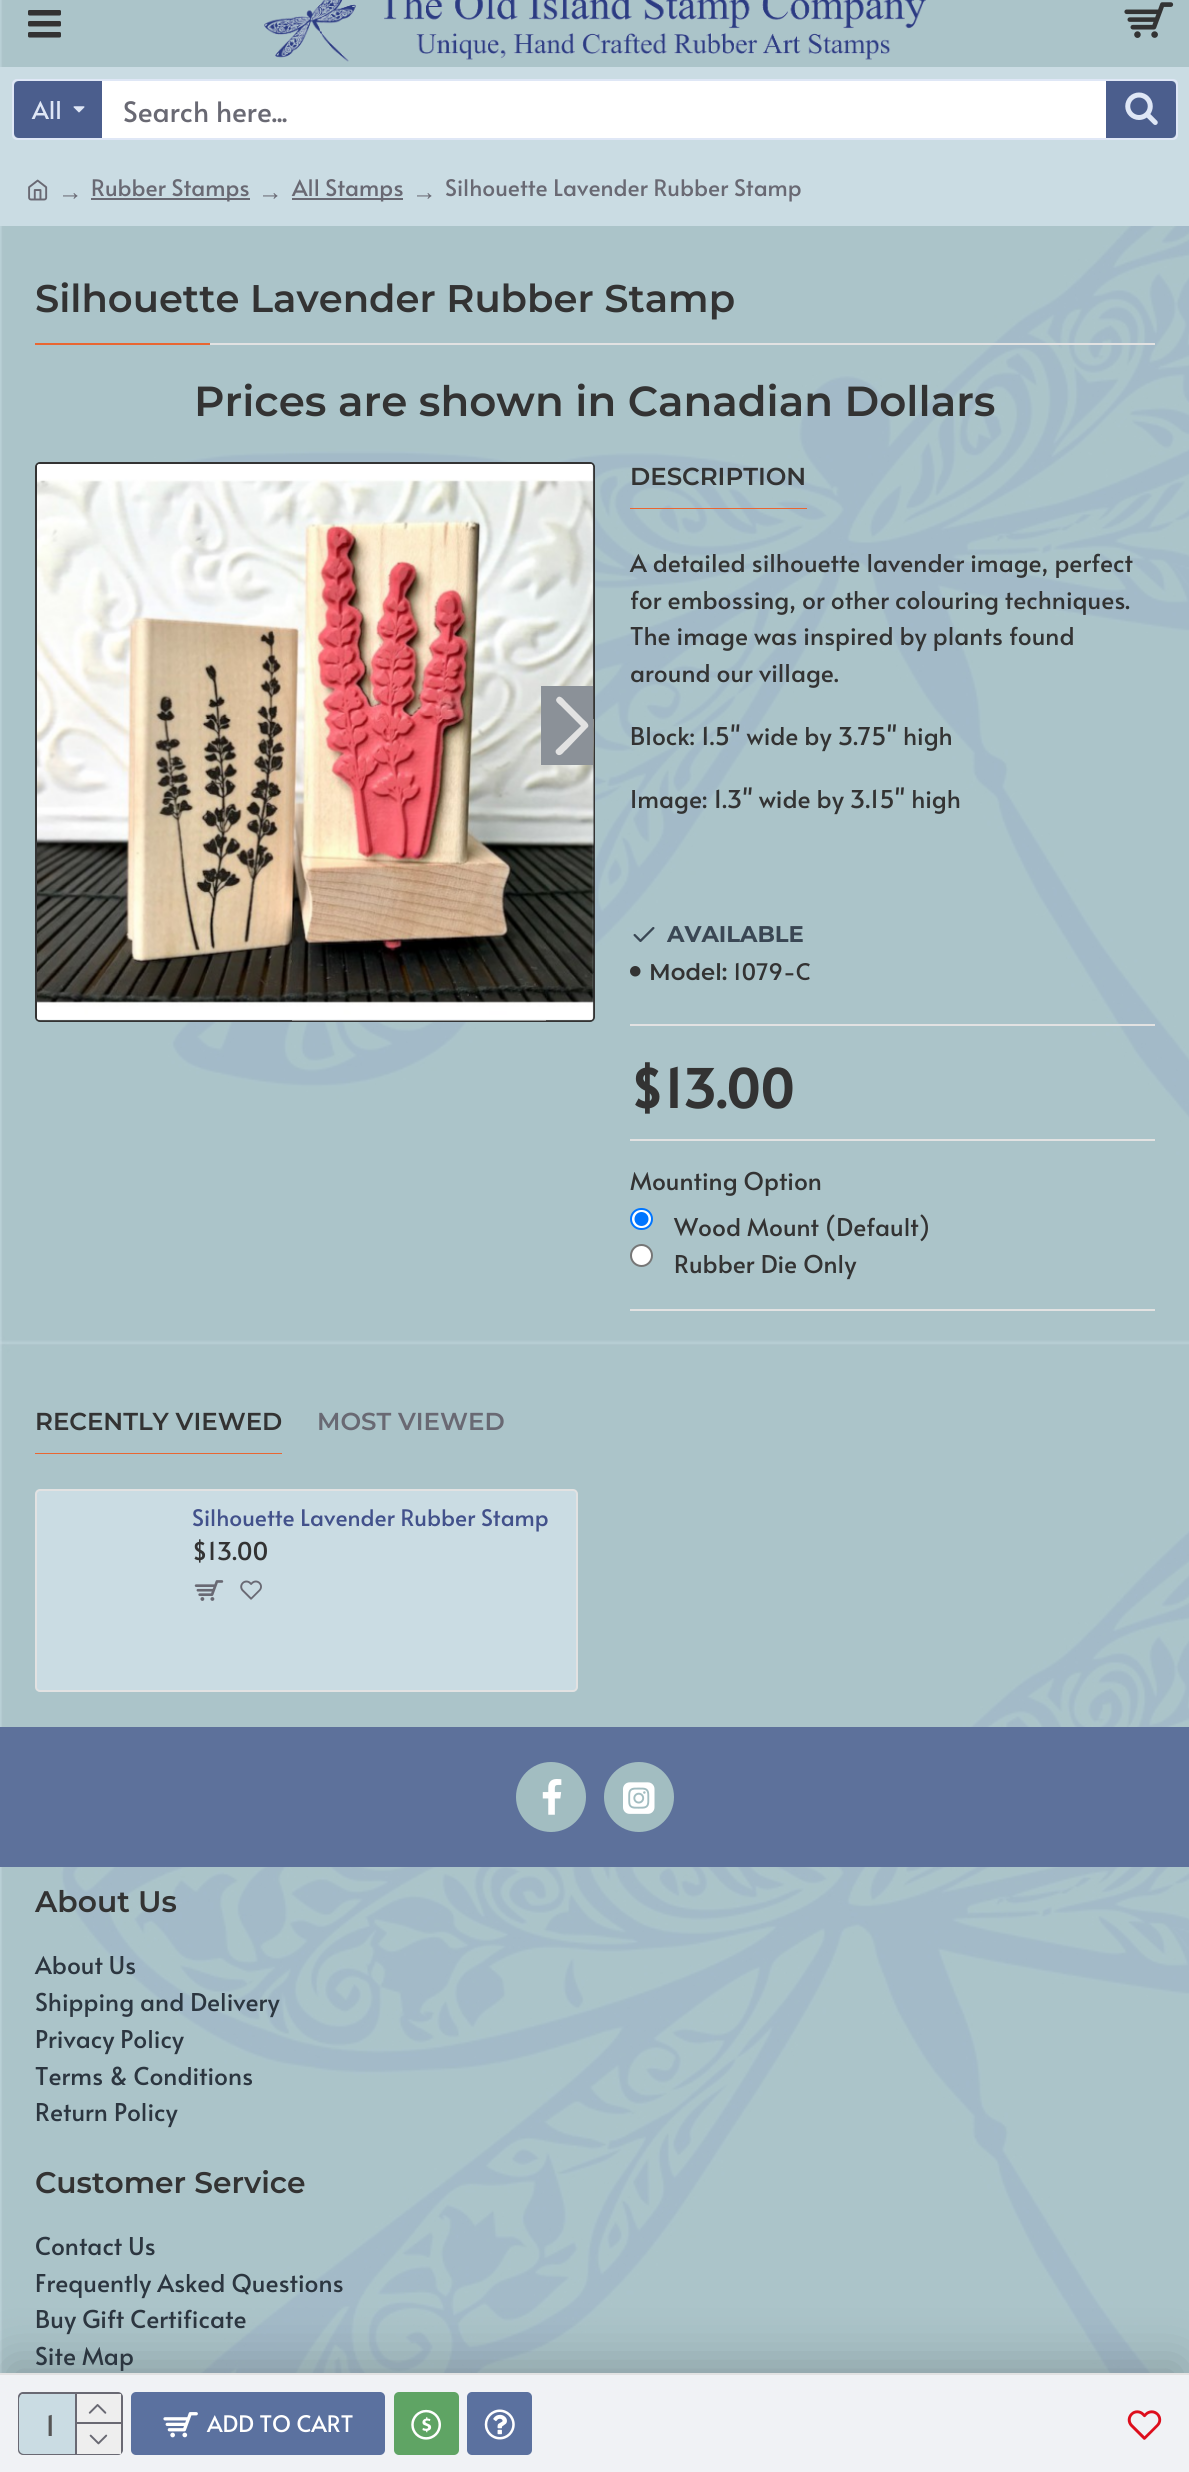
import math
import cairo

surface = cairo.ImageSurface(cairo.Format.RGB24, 1189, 2472)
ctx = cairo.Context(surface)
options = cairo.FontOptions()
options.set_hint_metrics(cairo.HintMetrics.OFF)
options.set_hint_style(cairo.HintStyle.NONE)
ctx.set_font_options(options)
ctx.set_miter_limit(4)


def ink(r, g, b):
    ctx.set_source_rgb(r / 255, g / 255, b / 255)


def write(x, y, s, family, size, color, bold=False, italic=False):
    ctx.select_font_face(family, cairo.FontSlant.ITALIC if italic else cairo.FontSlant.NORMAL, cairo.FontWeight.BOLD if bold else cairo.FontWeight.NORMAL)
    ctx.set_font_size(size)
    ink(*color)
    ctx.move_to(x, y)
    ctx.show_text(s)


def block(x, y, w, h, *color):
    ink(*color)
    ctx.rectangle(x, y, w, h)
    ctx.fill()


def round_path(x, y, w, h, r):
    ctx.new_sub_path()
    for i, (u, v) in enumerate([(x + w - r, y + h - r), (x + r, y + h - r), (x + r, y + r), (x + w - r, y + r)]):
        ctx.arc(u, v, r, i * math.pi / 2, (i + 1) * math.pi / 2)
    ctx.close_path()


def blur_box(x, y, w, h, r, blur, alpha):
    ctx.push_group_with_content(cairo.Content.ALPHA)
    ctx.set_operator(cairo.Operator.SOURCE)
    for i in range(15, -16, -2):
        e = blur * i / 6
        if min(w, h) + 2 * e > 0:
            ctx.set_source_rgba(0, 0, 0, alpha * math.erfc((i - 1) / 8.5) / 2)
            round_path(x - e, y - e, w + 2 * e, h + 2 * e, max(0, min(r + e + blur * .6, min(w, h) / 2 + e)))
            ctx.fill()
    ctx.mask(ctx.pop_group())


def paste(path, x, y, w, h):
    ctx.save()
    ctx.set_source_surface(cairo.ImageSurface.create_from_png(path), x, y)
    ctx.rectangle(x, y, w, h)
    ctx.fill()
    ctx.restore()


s1 = dict(family="Alata", size=24.5, color=(223, 231, 246))
s2 = dict(family="Alata", size=28, color=(105, 105, 115))
s3 = dict(family="Liberation Serif", size=24.5, color=(105, 105, 115))
s4 = dict(family="Alata", size=22.75, color=(105, 105, 115))
s5 = dict(family="Montserrat SemiBold", size=38.5, color=(51, 51, 51))
s6 = dict(family="Montserrat SemiBold", size=42, color=(51, 51, 51))
s7 = dict(family="Montserrat SemiBold", size=24.5, color=(51, 51, 51))
s8 = dict(family="Alata", size=24.5, color=(51, 51, 51))
s9 = dict(family="Montserrat", size=22.75, color=(58, 71, 84), bold=True)
s10 = dict(family="Montserrat SemiBold", size=22.75, color=(51, 51, 51))
s11 = dict(family="Alata", size=22.75, color=(51, 51, 51))
s12 = dict(family="Alata", size=52.5, color=(51, 51, 51), bold=True)
s13 = dict(family="Alata", size=28, color=(85, 85, 85))
s14 = dict(family="Alata", size=22.75, color=(255, 255, 255))
s15 = dict(family="Montserrat SemiBold", size=24.5, color=(105, 105, 115))
s16 = dict(family="Alata", size=22.75, color=(66, 81, 139))
s17 = dict(family="Montserrat SemiBold", size=29.75, color=(51, 51, 51))
s18 = dict(family="Alata", size=24.5, color=(44, 54, 64))

ink(255, 255, 255)
ctx.paint()
paste("pic1.png", 0, 0, 1189, 2373)
paste("pic2.png", 28, 10, 33, 28)
paste("pic3.png", 264, 0, 662, 62)
paste("pic4.png", 1124, 2, 50, 36)
block(0, 67, 1189, 159, 202, 220, 227)
round_path(13, 80, 1164, 59, 4)
ink(223, 231, 246)
ctx.stroke()
ink(75, 94, 141)
ctx.new_path()
ctx.move_to(19, 81)
ctx.line_to(102, 81)
ctx.line_to(102, 138)
ctx.line_to(19, 138)
ctx.curve_to(16, 138, 14, 136, 14, 133)
ctx.line_to(14, 86)
ctx.curve_to(14, 83, 16, 81, 19, 81)
ctx.close_path()
ctx.fill()
write(32, 119, "All", **s1)
paste("pic5.png", 73, 106, 12, 7)
block(102, 81, 1004, 57, 255, 255, 255)
write(123, 122, "Search here...", **s2)
ink(75, 94, 141)
ctx.new_path()
ctx.move_to(1106, 81)
ctx.line_to(1171, 81)
ctx.curve_to(1174, 81, 1176, 83, 1176, 86)
ctx.line_to(1176, 133)
ctx.curve_to(1176, 136, 1174, 138, 1171, 138)
ctx.line_to(1106, 138)
ctx.close_path()
ctx.fill()
paste("pic6.png", 1125, 92, 33, 33)
paste("pic7.png", 28, 179, 20, 22)
write(58, 200, "→", **s3)
block(91, 198, 159, 2, 105, 105, 115)
write(91, 196, "Rubber Stamps", **s4)
write(258, 200, "→", **s3)
block(292, 198, 111, 2, 105, 105, 115)
write(292, 196, "All Stamps", **s4)
write(412, 200, "→", **s3)
write(445, 196, "Silhouette Lavender Rubber Stamp", **s4)
block(210, 343, 945, 2, 226, 226, 226)
write(35, 312, "Silhouette Lavender Rubber Stamp", **s5)
block(35, 343, 175, 2, 233, 102, 49)
write(194, 416, "Prices are shown in Canadian Dollars", **s6)
round_path(36, 463, 558, 558, 4)
ctx.stroke()
paste("pic8.png", 37, 464, 557, 557)
block(541, 686, 52, 79, 139, 145, 152)
ink(226, 226, 226)
ctx.new_path()
ctx.move_to(587, 728)
ctx.line_to(566, 750)
ctx.curve_to(564, 751, 562, 756, 558, 755)
ctx.curve_to(556, 754, 555, 752, 556, 750)
ctx.line_to(581, 726)
ctx.line_to(561, 706)
ctx.curve_to(559, 704, 554, 701, 557, 698)
ctx.curve_to(560, 694, 564, 700, 566, 702)
ctx.line_to(583, 719)
ctx.curve_to(585, 721, 591, 725, 587, 728)
ctx.close_path()
ctx.fill()
block(630, 508, 177, 1, 233, 102, 49)
write(630, 485, "DESCRIPTION", **s7)
write(630, 572, "A detailed silhouette lavender image, perfect", **s8)
write(630, 609, "for embossing, or other colouring techniques.", **s8)
write(630, 645, "The image was inspired by plants found", **s8)
write(630, 682, "around our village.", **s8)
write(630, 745, "Block: 1.5\" wide by 3.75\" high", **s8)
write(630, 808, "Image: 1.3\" wide by 3.15\" high", **s8)
block(630, 1024, 525, 2, 226, 226, 226)
paste("pic9.png", 633, 927, 22, 15)
write(667, 942, "AVAILABLE", **s9)
paste("pic10.png", 630, 966, 11, 11)
write(649, 980, "Model:", **s10)
write(733, 980, "1079-C", **s11)
write(630, 1108, "$13.00", **s12)
block(630, 1139, 525, 2, 226, 226, 226)
block(630, 1309, 525, 2, 226, 226, 226)
write(630, 1190, "Mounting Option", **s8)
ink(255, 255, 255)
round_path(631, 1209, 21, 20, 10)
ctx.fill_preserve()
ink(0, 117, 255)
ctx.stroke()
ctx.arc(641.5, 1219, 7, 0, 2 * math.pi)
ctx.fill()
write(674, 1236, "Wood Mount (Default)", **s8)
ink(255, 255, 255)
ctx.new_path()
ctx.arc(641.5, 1255.5, 10.5, 0, 2 * math.pi)
ctx.fill_preserve()
ink(118, 118, 118)
ctx.stroke()
write(674, 1273, "Rubber Die Only", **s8)
ink(0, 0, 0)
blur_box(9, 2364, 1172, 83, 0, 26, 0.2)
block(0, 2375, 1189, 97, 240, 242, 245)
block(0, 2373, 1189, 2, 226, 226, 226)
round_path(19, 2393, 103, 61, 4)
ink(105, 105, 115)
ctx.stroke()
ink(202, 220, 227)
round_path(19, 2394, 102, 60, 5)
ctx.fill()
write(45, 2436, "1", **s13)
block(75, 2394, 2, 60, 105, 105, 115)
block(77, 2394, 44, 28, 238, 238, 238)
block(77, 2422, 44, 2, 105, 105, 115)
paste("pic11.png", 88, 2404, 19, 10)
block(77, 2424, 44, 30, 238, 238, 238)
paste("pic12.png", 89, 2434, 19, 11)
ink(91, 113, 159)
round_path(131, 2392, 254, 63, 5)
ctx.fill()
paste("pic13.png", 163, 2412, 35, 26)
write(207, 2432, "ADD TO CART", **s14)
ink(95, 164, 100)
round_path(394, 2392, 65, 63, 5)
ctx.fill()
paste("pic14.png", 411, 2409, 30, 31)
ink(91, 113, 159)
round_path(467, 2392, 65, 63, 5)
ctx.fill()
paste("pic15.png", 484, 2409, 31, 31)
paste("pic16.png", 1127, 2410, 35, 30)
block(35, 1453, 247, 1, 233, 102, 49)
write(35, 1430, "RECENTLY VIEWED", **s7)
write(317, 1430, "MOST VIEWED", **s15)
ink(202, 220, 227)
round_path(36, 1490, 541, 201, 4)
ctx.fill_preserve()
ink(226, 226, 226)
ctx.stroke()
write(192, 1526, "Silhouette Lavender Rubber Stamp", **s16)
write(192, 1560, "$13.00", **s8)
paste("pic17.png", 194, 1580, 30, 21)
paste("pic18.png", 240, 1580, 22, 20)
block(0, 1727, 1189, 140, 93, 113, 155)
ink(162, 189, 193)
ctx.arc(551, 1797, 35, 0, 2 * math.pi)
ctx.fill()
paste("pic19.png", 542, 1779, 20, 36)
ctx.arc(639, 1797, 35, 0, 2 * math.pi)
ctx.fill()
paste("pic20.png", 623, 1782, 32, 32)
write(35, 1912, "About Us", **s17)
write(35, 1974, "About Us", **s18)
write(35, 2011, "Shipping and Delivery", **s18)
write(35, 2048, "Privacy Policy", **s18)
write(35, 2085, "Terms & Conditions", **s18)
write(35, 2121, "Return Policy", **s18)
write(35, 2193, "Customer Service", **s17)
write(35, 2255, "Contact Us", **s18)
write(35, 2292, "Frequently Asked Questions", **s18)
write(35, 2328, "Buy Gift Certificate", **s18)
write(35, 2365, "Site Map", **s18)
surface.write_to_png("screenshot.png")
